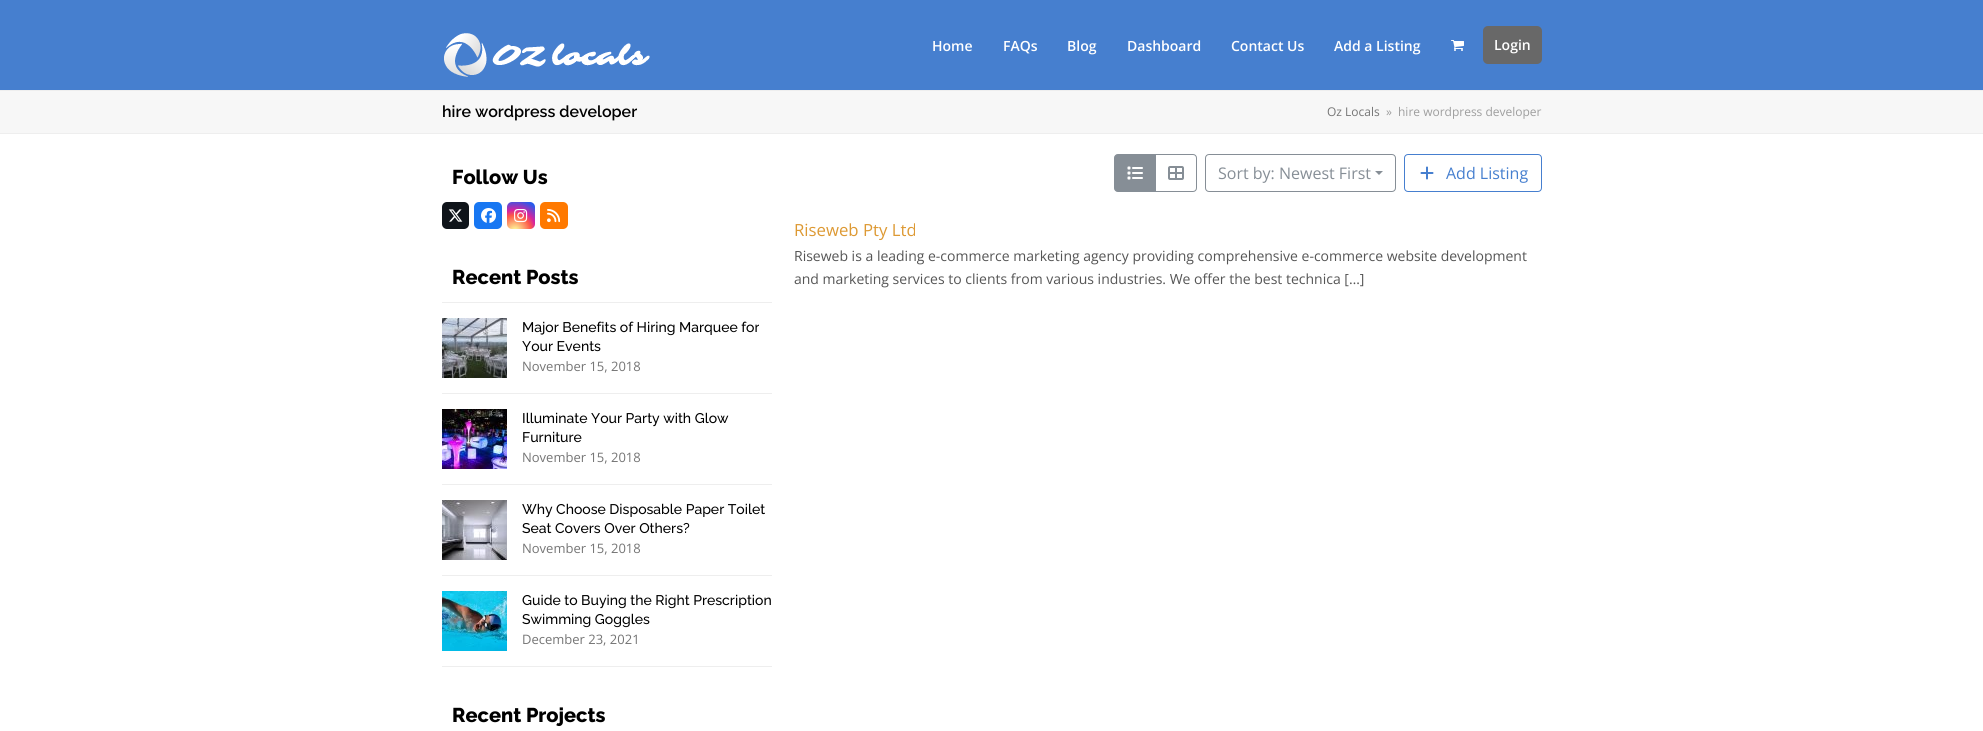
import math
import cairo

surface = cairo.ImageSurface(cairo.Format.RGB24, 1983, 731)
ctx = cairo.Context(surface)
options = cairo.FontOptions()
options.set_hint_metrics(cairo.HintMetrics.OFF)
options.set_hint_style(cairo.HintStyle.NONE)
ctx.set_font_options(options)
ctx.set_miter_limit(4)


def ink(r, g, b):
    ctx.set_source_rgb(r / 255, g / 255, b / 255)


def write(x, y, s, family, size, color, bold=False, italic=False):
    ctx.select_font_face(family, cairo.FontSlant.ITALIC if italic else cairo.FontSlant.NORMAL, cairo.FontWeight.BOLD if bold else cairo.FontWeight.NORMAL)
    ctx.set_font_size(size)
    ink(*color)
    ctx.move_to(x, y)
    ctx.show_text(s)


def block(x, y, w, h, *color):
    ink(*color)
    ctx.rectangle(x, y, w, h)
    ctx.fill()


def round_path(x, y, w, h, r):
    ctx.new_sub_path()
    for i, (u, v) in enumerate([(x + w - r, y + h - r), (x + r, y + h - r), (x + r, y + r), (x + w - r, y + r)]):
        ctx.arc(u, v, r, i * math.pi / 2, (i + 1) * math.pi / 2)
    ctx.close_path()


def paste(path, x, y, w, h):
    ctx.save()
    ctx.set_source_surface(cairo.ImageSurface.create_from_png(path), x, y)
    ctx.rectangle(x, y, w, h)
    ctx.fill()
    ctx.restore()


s1 = dict(family="Open Sans SemiBold", size=14, color=(255, 255, 255))
s2 = dict(family="Raleway SemiBold", size=16, color=(0, 0, 0))
s3 = dict(family="Open Sans", size=12, color=(117, 117, 117))
s4 = dict(family="Open Sans", size=12, color=(158, 158, 158))
s5 = dict(family="Raleway ExtraBold", size=20, color=(0, 0, 0))
s6 = dict(family="Raleway Medium", size=14, color=(0, 0, 0))
s7 = dict(family="Open Sans", size=13, color=(117, 117, 117))
s8 = dict(family="Open Sans", size=16, color=(134, 142, 150))
s9 = dict(family="Open Sans", size=16, color=(70, 127, 207))
s10 = dict(family="Open Sans", size=16.75, color=(221, 153, 51))
s11 = dict(family="Open Sans", size=14, color=(85, 85, 85))

ink(255, 255, 255)
ctx.paint()
block(0, 0, 1983, 90, 70, 127, 207)
paste("pic1.png", 444, 33, 206, 44)
write(932, 51, "Home", **s1)
write(1003, 51, "FAQs", **s1)
write(1067, 51, "Blog", **s1)
write(1127, 51, "Dashboard", **s1)
write(1231, 51, "Contact Us", **s1)
write(1334, 51, "Add a Listing", **s1)
paste("pic2.png", 1451, 40, 13, 11)
ink(104, 104, 104)
round_path(1483, 26, 59, 38, 5)
ctx.fill()
write(1494, 50, "Login", **s1)
block(0, 91, 1983, 42, 247, 247, 247)
block(0, 90, 1983, 1, 238, 238, 238)
block(0, 133, 1983, 1, 238, 238, 238)
write(442, 117, "hire wordpress developer", **s2)
write(1327, 116, "Oz Locals", **s3)
write(1386, 116, "»", **s4)
write(1398, 116, "hire wordpress developer", **s4)
write(452, 184, "Follow Us", **s5)
ink(15, 20, 26)
round_path(442, 202, 27, 27, 5)
ctx.fill()
paste("pic3.png", 448, 209, 15, 13)
ink(24, 119, 242)
round_path(474, 202, 28, 27, 5)
ctx.fill()
paste("pic4.png", 481, 208, 15, 15)
gradient = cairo.RadialGradient(515, 231, 0, 515, 231, 35)
gradient.add_color_stop_rgba(0, 0.992, 0.957, 0.592, 1)
gradient.add_color_stop_rgba(0.05, 0.992, 0.957, 0.592, 1)
gradient.add_color_stop_rgba(0.45, 0.992, 0.349, 0.286, 1)
gradient.add_color_stop_rgba(0.6, 0.839, 0.141, 0.624, 1)
gradient.add_color_stop_rgba(0.9, 0.157, 0.353, 0.922, 1)
ctx.set_source(gradient)
round_path(507, 202, 28, 27, 5)
ctx.fill()
paste("pic5.png", 514, 209, 14, 14)
ink(255, 121, 0)
round_path(540, 202, 28, 27, 5)
ctx.fill()
paste("pic6.png", 547, 209, 13, 14)
write(452, 284, "Recent Posts", **s5)
block(442, 302, 330, 1, 238, 238, 238)
block(442, 393, 330, 1, 238, 238, 238)
paste("pic7.png", 442, 318, 65, 60)
write(522, 332, "Major Benefits of Hiring Marquee for", **s6)
write(522, 351, "Your Events", **s6)
write(522, 371, "November 15, 2018", **s7)
block(442, 484, 330, 1, 238, 238, 238)
paste("pic8.png", 442, 409, 65, 60)
write(522, 423, "Illuminate Your Party with Glow", **s6)
write(522, 442, "Furniture", **s6)
write(522, 462, "November 15, 2018", **s7)
block(442, 575, 330, 1, 238, 238, 238)
paste("pic9.png", 442, 500, 65, 60)
write(522, 514, "Why Choose Disposable Paper Toilet", **s6)
write(522, 533, "Seat Covers Over Others?", **s6)
write(522, 553, "November 15, 2018", **s7)
block(442, 666, 330, 1, 238, 238, 238)
paste("pic10.png", 442, 591, 65, 60)
write(522, 605, "Guide to Buying the Right Prescription", **s6)
write(522, 624, "Swimming Goggles", **s6)
write(522, 644, "December 23, 2021", **s7)
write(452, 722, "Recent Projects", **s5)
ctx.new_path()
ctx.move_to(1155.5, 154.5)
ctx.line_to(1193, 154.5)
ctx.curve_to(1195, 154.5, 1196.5, 156, 1196.5, 158)
ctx.line_to(1196.5, 188)
ctx.curve_to(1196.5, 190, 1195, 191.5, 1193, 191.5)
ctx.line_to(1155.5, 191.5)
ctx.close_path()
ink(134, 142, 150)
ctx.set_line_width(1)
ctx.stroke()
ctx.new_path()
ctx.move_to(1118, 154.5)
ctx.line_to(1155.5, 154.5)
ctx.line_to(1155.5, 191.5)
ctx.line_to(1118, 191.5)
ctx.curve_to(1116, 191.5, 1114.5, 190, 1114.5, 188)
ctx.line_to(1114.5, 158)
ctx.curve_to(1114.5, 156, 1116, 154.5, 1118, 154.5)
ctx.close_path()
ctx.fill_preserve()
ctx.stroke()
paste("pic11.png", 1127, 166, 16, 14)
paste("pic12.png", 1168, 166, 16, 14)
round_path(1205.5, 154.5, 190, 37, 3.5)
ctx.stroke()
write(1218, 179, "Sort by: Newest First", **s8)
ctx.new_path()
ctx.move_to(1375, 171)
ctx.line_to(1383, 171)
ctx.line_to(1379, 175)
ctx.close_path()
ctx.fill()
round_path(1404.5, 154.5, 137, 37, 3.5)
ink(70, 127, 207)
ctx.stroke()
paste("pic13.png", 1420, 166, 14, 14)
write(1446, 179, "Add Listing", **s9)
write(794, 236, "Riseweb Pty Ltd", **s10)
write(794, 261, "Riseweb is a leading e-commerce marketing agency providing comprehensive e-commerce website development", **s11)
write(794, 284, "and marketing services to clients from various industries. We offer the best technica […]", **s11)
surface.write_to_png("screenshot.png")
